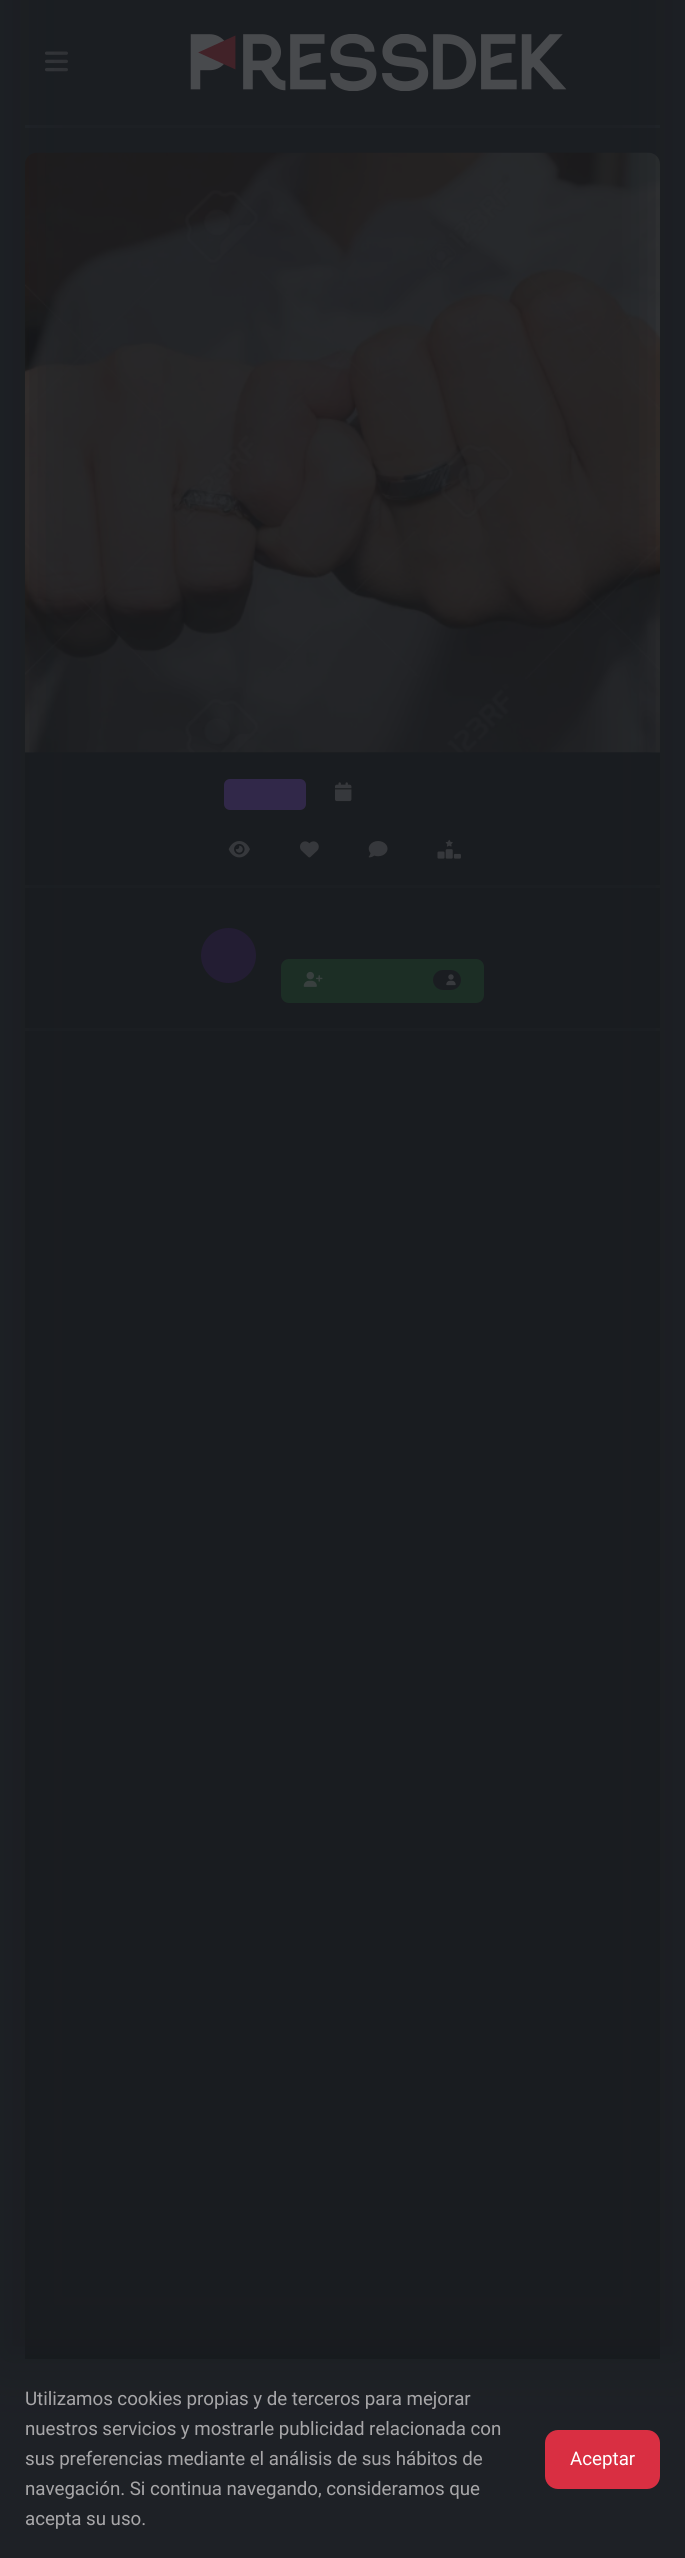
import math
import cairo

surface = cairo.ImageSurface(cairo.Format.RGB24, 685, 2558)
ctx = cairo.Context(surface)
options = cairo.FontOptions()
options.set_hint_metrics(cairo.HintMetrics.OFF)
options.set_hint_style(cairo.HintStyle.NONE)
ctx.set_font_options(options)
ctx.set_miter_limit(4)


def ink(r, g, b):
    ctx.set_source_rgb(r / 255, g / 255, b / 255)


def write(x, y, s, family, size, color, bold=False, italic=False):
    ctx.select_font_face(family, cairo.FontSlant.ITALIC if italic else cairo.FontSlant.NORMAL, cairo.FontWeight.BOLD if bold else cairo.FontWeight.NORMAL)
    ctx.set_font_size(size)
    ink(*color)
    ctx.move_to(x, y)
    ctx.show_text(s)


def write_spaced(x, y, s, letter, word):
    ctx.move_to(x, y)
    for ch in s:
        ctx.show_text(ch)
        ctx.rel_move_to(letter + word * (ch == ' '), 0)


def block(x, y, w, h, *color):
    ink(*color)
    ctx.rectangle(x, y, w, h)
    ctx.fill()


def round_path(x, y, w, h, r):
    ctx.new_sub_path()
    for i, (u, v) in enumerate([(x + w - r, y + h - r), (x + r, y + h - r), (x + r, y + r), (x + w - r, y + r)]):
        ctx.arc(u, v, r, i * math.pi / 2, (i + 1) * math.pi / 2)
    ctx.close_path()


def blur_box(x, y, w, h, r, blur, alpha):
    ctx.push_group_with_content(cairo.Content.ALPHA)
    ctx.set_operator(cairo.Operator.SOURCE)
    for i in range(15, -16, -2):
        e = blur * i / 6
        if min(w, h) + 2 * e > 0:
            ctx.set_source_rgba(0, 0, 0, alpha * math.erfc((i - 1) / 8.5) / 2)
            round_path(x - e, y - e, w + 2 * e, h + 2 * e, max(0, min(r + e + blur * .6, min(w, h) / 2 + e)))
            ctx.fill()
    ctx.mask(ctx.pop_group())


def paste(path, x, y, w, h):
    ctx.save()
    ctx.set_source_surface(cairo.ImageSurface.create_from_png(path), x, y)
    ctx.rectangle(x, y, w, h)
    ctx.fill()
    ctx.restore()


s1 = dict(family="Roboto", size=18.75, color=(255, 255, 255))

ink(30, 33, 38)
ctx.paint()
block(25, 125, 635, 3, 41, 45, 52)
paste("pic1.png", 45, 51, 23, 21)
paste("pic2.png", 190, 34, 377, 57)
ink(22, 25, 28)
round_path(25, 153, 635, 600, 13)
ctx.fill()
paste("pic3.png", 25, 152, 635, 601)
block(25, 753, 635, 1606, 22, 25, 28)
block(25, 1028, 635, 3, 30, 33, 38)
ink(140, 84, 233)
round_path(224, 779, 82, 31, 6)
ctx.fill()
paste("pic4.png", 335, 782, 17, 20)
paste("pic5.png", 228, 841, 22, 17)
paste("pic6.png", 300, 841, 19, 17)
paste("pic7.png", 368, 841, 20, 17)
paste("pic8.png", 437, 839, 24, 20)
block(25, 885, 635, 3, 30, 33, 38)
ink(70, 28, 124)
ctx.arc(228.5, 955.5, 27.5, 0, 2 * math.pi)
ctx.fill()
ink(34, 117, 55)
round_path(281, 959, 203, 44, 8)
ctx.fill()
paste("pic9.png", 303, 971, 20, 16)
ink(27, 30, 35)
round_path(433, 970, 28, 20, 10)
ctx.fill()
paste("pic10.png", 446, 974, 10, 12)
ink(217, 47, 66)
round_path(545, 2430, 115, 59, 13)
ctx.fill()
ink(26, 29, 33)
blur_box(0, -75, 685, 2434, 0, 25, 0.8)
ctx.select_font_face("Roboto")
ctx.set_font_size(18.75)
ink(167, 166, 168)
write_spaced(25, 2405, "Utilizamos cookies propias y de terceros para mejorar", -0.05, 0)
write_spaced(25, 2435, "nuestros servicios y mostrarle publicidad relacionada con", -0.05, 0)
write_spaced(25, 2465, "sus preferencias mediante el análisis de sus hábitos de", -0.05, 0)
write_spaced(25, 2495, "navegación. Si continua navegando, consideramos que", -0.05, 0)
write_spaced(25, 2525, "acepta su uso.", -0.05, 0)
write(570, 2465, "Aceptar", **s1)
surface.write_to_png("screenshot.png")
